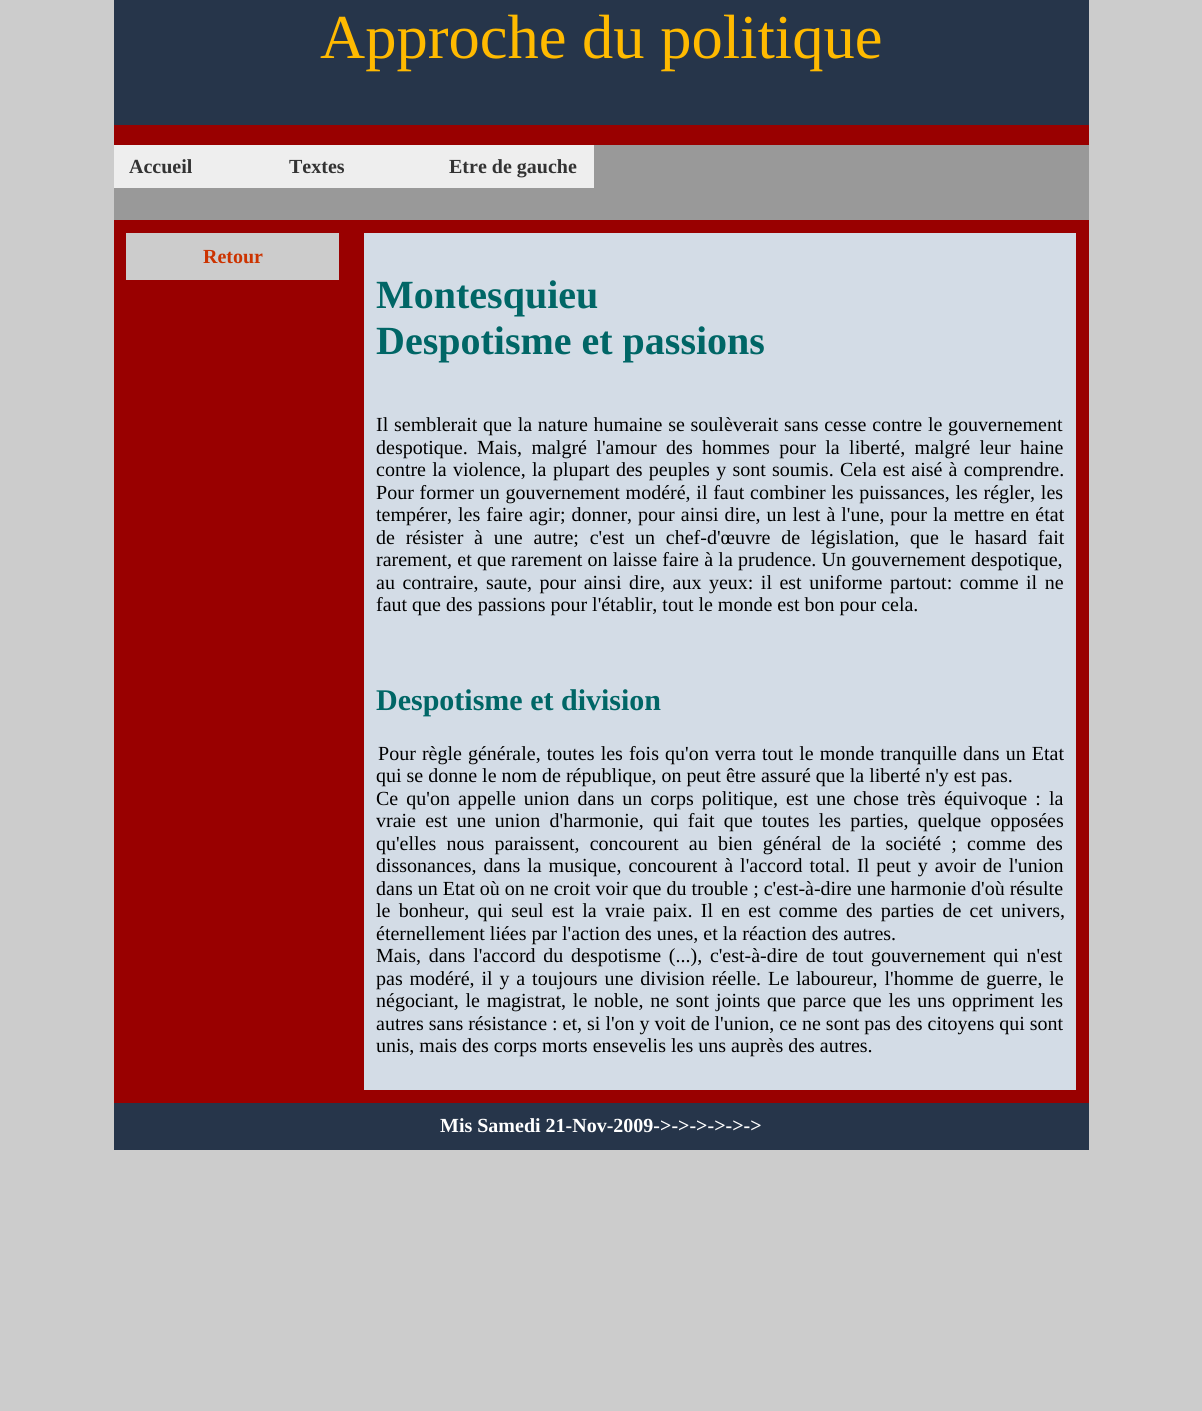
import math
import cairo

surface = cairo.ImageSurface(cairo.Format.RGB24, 1202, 1411)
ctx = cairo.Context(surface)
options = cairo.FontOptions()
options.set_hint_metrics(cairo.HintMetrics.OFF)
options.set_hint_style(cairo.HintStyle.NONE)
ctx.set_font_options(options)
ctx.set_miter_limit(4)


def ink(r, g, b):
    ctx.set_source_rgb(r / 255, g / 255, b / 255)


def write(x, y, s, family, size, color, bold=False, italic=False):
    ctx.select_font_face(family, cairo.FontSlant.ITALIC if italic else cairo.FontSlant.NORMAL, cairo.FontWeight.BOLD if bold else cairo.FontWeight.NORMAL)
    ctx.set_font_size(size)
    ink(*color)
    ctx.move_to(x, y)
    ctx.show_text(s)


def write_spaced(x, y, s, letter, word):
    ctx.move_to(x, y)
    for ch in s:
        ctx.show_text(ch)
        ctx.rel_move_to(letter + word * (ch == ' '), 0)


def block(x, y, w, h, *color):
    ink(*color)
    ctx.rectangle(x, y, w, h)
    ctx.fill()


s1 = dict(family="Liberation Serif", size=62.5, color=(255, 186, 0))
s2 = dict(family="Liberation Serif", size=20, color=(51, 51, 51), bold=True)
s3 = dict(family="Liberation Serif", size=20, color=(204, 51, 0), bold=True)
s4 = dict(family="Liberation Serif", size=40, color=(0, 102, 102), bold=True)
s5 = dict(family="Liberation Serif", size=20, color=(0, 0, 0))
s6 = dict(family="Liberation Serif", size=30, color=(0, 102, 102), bold=True)
s7 = dict(family="Liberation Serif", size=20, color=(255, 255, 255), bold=True)

ink(204, 204, 204)
ctx.paint()
block(114, 125, 975, 978, 153, 0, 0)
block(114, 0, 975, 125, 38, 53, 74)
write(320, 58, "Approche du politique", **s1)
block(114, 145, 975, 75, 153, 153, 153)
block(114, 145, 480, 43, 238, 238, 238)
write(129, 173, "Accueil", **s2)
write(289, 173, "Textes", **s2)
write(449, 173, "Etre de gauche", **s2)
block(126, 233, 213, 47, 204, 204, 204)
write(203, 263, "Retour", **s3)
block(364, 233, 712, 857, 211, 220, 230)
write(376, 308, "Montesquieu", **s4)
write(376, 354, "Despotisme et passions", **s4)
ctx.select_font_face("Liberation Serif")
ctx.set_font_size(20)
ink(0, 0, 0)
write_spaced(376, 431, "Il semblerait que la nature humaine se soulèverait sans cesse contre le gouvernement", 0, 0.75)
write_spaced(376, 454, "despotique. Mais, malgré l'amour des hommes pour la liberté, malgré leur haine", 0, 4.4)
write_spaced(376, 476, "contre la violence, la", 0, 1.25)
write_spaced(553, 476, "plupart des peuples y sont soumis. Cela est aisé à comprendre.", 0, 1.25)
write_spaced(376, 499, "Pour former un gouvernement modéré, il faut combiner les puissances, les régler, les", 0, 0.75)
write_spaced(376, 521, "tempérer, les faire agir; donner, pour ainsi dire, un lest à l'une, pour la mettre en état", 0, 1)
write_spaced(376, 544, "de résister à une autre; c'est un chef-d'œuvre de législation, que le hasard fait", 0, 5.75)
write_spaced(376, 566, "rarement, et que rarement on laisse faire à la prudence. Un gouvernement despotique,", 0, 0.25)
write_spaced(376, 589, "au contraire, saute, pour ainsi dire, aux yeux: il est uniforme partout: comme il ne", 0, 2.5)
write(376, 611, "faut que des passions pour l'établir, tout le monde est bon pour cela.", **s5)
write(376, 710, "Despotisme et division", **s6)
ctx.select_font_face("Liberation Serif")
ctx.set_font_size(20)
ink(0, 0, 0)
write_spaced(378, 760, "Pour règle générale, toutes les fois qu'on verra tout le monde tranquille dans un Etat", 0, 1.1)
write(376, 782, "qui se donne le nom de république, on peut être assuré que la liberté n'y est pas.", **s5)
write_spaced(376, 805, "Ce qu'on appelle union dans un corps politique, est une chose très équivoque : la", 0, 3.1)
write_spaced(376, 827, "vraie est une union d'harmonie, qui fait que toutes les parties, quelque opposées", 0, 4.25)
write_spaced(376, 850, "qu'elles nous paraissent, concourent au bien général de la société ; comme des", 0, 5.25)
write_spaced(376, 872, "dissonances, dans la musique, concourent à l'accord total. Il peut y avoir de l'union", 0, 2)
write(376, 895, "dans un Etat où on ne croit voir que du trouble ; c'est-à-dire une harmonie d'où résulte", **s5)
write_spaced(376, 917, "le bonheur, qui seul est la vraie paix. Il en est comme des parties de cet univers,", 0, 3.25)
write(376, 940, "éternellement liées par l'action des unes, et la réaction des autres.", **s5)
write_spaced(376, 962, "Mais, dans l'accord du despotisme (...), c'est-à-dire de tout gouvernement qui n'est", 0, 2.75)
write_spaced(376, 985, "pas modéré, il y a toujours une division réelle. Le laboureur, l'homme de guerre, le", 0, 1.9)
write_spaced(376, 1007, "négociant, le magistrat, le noble, ne sont joints que parce que les uns oppriment les", 0, 1.75)
write(376, 1030, "autres sans résistance : et, si l'on y voit de l'union, ce ne sont pas des citoyens qui sont", **s5)
write(376, 1052, "unis, mais des corps morts ensevelis les uns auprès des autres.", **s5)
block(114, 1103, 975, 47, 38, 53, 74)
write(440, 1132, "Mis Samedi 21-Nov-2009->->->->->->", **s7)
surface.write_to_png("screenshot.png")
